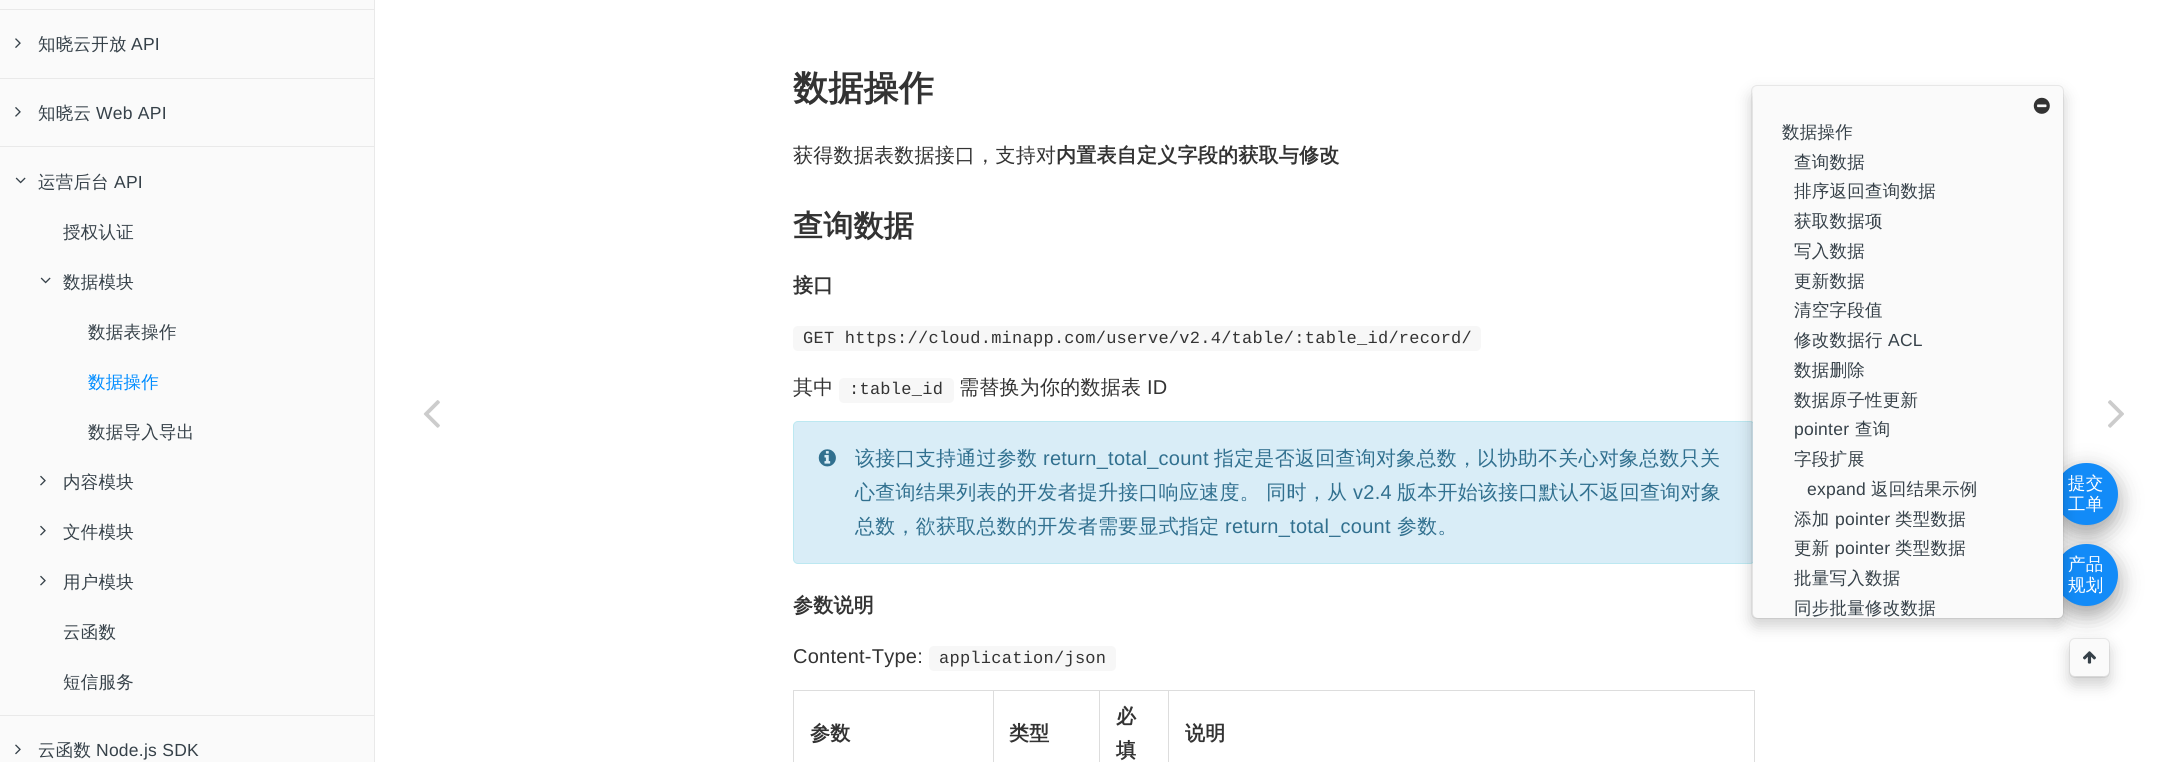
import math
import cairo

surface = cairo.ImageSurface(cairo.Format.RGB24, 2172, 762)
ctx = cairo.Context(surface)
options = cairo.FontOptions()
options.set_hint_metrics(cairo.HintMetrics.OFF)
options.set_hint_style(cairo.HintStyle.NONE)
ctx.set_font_options(options)
ctx.set_miter_limit(4)


def ink(r, g, b):
    ctx.set_source_rgb(r / 255, g / 255, b / 255)


def write_spaced(x, y, s, letter, word):
    ctx.move_to(x, y)
    for ch in s:
        ctx.show_text(ch)
        ctx.rel_move_to(letter + word * (ch == ' '), 0)


def block(x, y, w, h, *color):
    ink(*color)
    ctx.rectangle(x, y, w, h)
    ctx.fill()


def round_path(x, y, w, h, r):
    ctx.new_sub_path()
    for i, (u, v) in enumerate([(x + w - r, y + h - r), (x + r, y + h - r), (x + r, y + r), (x + w - r, y + r)]):
        ctx.arc(u, v, r, i * math.pi / 2, (i + 1) * math.pi / 2)
    ctx.close_path()


def blur_box(x, y, w, h, r, blur, alpha):
    ctx.push_group_with_content(cairo.Content.ALPHA)
    ctx.set_operator(cairo.Operator.SOURCE)
    for i in range(15, -16, -2):
        e = blur * i / 6
        if min(w, h) + 2 * e > 0:
            ctx.set_source_rgba(0, 0, 0, alpha * math.erfc((i - 1) / 8.5) / 2)
            round_path(x - e, y - e, w + 2 * e, h + 2 * e, max(0, min(r + e + blur * .6, min(w, h) / 2 + e)))
            ctx.fill()
    ctx.mask(ctx.pop_group())


def paste(path, x, y, w, h):
    ctx.save()
    ctx.set_source_surface(cairo.ImageSurface.create_from_png(path), x, y)
    ctx.rectangle(x, y, w, h)
    ctx.fill()
    ctx.restore()


ink(255, 255, 255)
ctx.paint()
block(0, 0, 374, 762, 250, 250, 250)
block(374, 0, 1, 762, 233, 233, 233)
block(0, 9, 374, 1, 233, 233, 233)
paste("pic1.png", 15, 38, 6, 10)
ctx.select_font_face("WenQuanYi Zen Hei Medium")
ctx.set_font_size(17.5)
ink(54, 65, 73)
write_spaced(38, 50, "知晓云开放", 0.25, 0)
ctx.select_font_face("Liberation Sans")
write_spaced(131, 50, "API", 0.25, 0)
block(0, 78, 374, 1, 233, 233, 233)
paste("pic2.png", 15, 107, 6, 10)
ctx.select_font_face("WenQuanYi Zen Hei Medium")
ink(54, 65, 73)
write_spaced(38, 119, "知晓云", 0.25, 0)
ctx.select_font_face("Liberation Sans")
write_spaced(96, 119, "Web API", 0.25, 0)
block(0, 146, 374, 1, 233, 233, 233)
paste("pic3.png", 15, 177, 11, 7)
ctx.select_font_face("WenQuanYi Zen Hei Medium")
ink(54, 65, 73)
write_spaced(38, 188, "运营后台", 0.25, 0)
ctx.select_font_face("Liberation Sans")
write_spaced(114, 188, "API", 0.25, 0)
ctx.select_font_face("WenQuanYi Zen Hei Medium")
write_spaced(63, 238, "授权认证", 0.25, 0)
paste("pic3.png", 40, 277, 11, 7)
write_spaced(63, 288, "数据模块", 0.25, 0)
write_spaced(88, 338, "数据表操作", 0.25, 0)
ink(0, 140, 255)
write_spaced(88, 388, "数据操作", 0.25, 0)
ink(54, 65, 73)
write_spaced(88, 438, "数据导入导出", 0.25, 0)
paste("pic4.png", 40, 475, 6, 11)
write_spaced(63, 488, "内容模块", 0.25, 0)
paste("pic4.png", 40, 525, 6, 11)
write_spaced(63, 538, "文件模块", 0.25, 0)
paste("pic4.png", 40, 575, 6, 11)
write_spaced(63, 588, "用户模块", 0.25, 0)
write_spaced(63, 638, "云函数", 0.25, 0)
write_spaced(63, 688, "短信服务", 0.25, 0)
block(0, 715, 374, 1, 233, 233, 233)
paste("pic5.png", 15, 744, 6, 11)
ink(54, 65, 73)
write_spaced(38, 756, "云函数", 0.25, 0)
ctx.select_font_face("Liberation Sans")
write_spaced(96, 756, "Node.js SDK", 0.25, 0)
paste("pic6.png", 423, 400, 17, 28)
ctx.select_font_face("WenQuanYi Zen Hei", cairo.FontSlant.NORMAL, cairo.FontWeight.BOLD)
ctx.set_font_size(35)
ink(51, 51, 51)
write_spaced(793, 100, "数据操作", 0.25, 0)
ctx.select_font_face("WenQuanYi Zen Hei Medium")
ctx.set_font_size(20)
write_spaced(793, 162, "获得数据表数据接口，支持对", 0.25, 0)
ctx.select_font_face("WenQuanYi Zen Hei", cairo.FontSlant.NORMAL, cairo.FontWeight.BOLD)
write_spaced(1056, 162, "内置表自定义字段的获取与修改", 0.25, 0)
ink(217, 237, 247)
round_path(793.5, 421.5, 961, 142, 4.5)
ctx.fill_preserve()
ink(188, 232, 241)
ctx.set_line_width(1)
ctx.stroke()
ink(0, 0, 0)
blur_box(2055, 470, 63, 63, 31.5, 12.5, 0.19)
blur_box(2055, 473, 63, 62, 31, 10.5, 0.2)
ink(18, 139, 248)
round_path(2055, 463, 63, 62, 31)
ctx.fill()
ink(0, 0, 0)
blur_box(2055, 551, 63, 63, 31.5, 12.5, 0.19)
blur_box(2055, 554, 63, 62, 31, 10.5, 0.2)
ink(18, 139, 248)
round_path(2055, 544, 63, 62, 31)
ctx.fill()
ink(0, 0, 0)
blur_box(1751, 93, 313, 533, 6, 7.5, 0.18)
ink(250, 250, 250)
round_path(1753, 86, 310, 532, 5)
ctx.fill()
round_path(1751.5, 85.5, 312, 533, 5.5)
ctx.set_source_rgba(0, 0, 0, 0.07)
ctx.stroke()
paste("pic7.png", 2033, 97, 17, 17)
ctx.select_font_face("WenQuanYi Zen Hei Medium")
ctx.set_font_size(17.5)
ink(54, 65, 73)
write_spaced(1782, 138, "数据操作", 0.25, 0)
write_spaced(1794, 168, "查询数据", 0.25, 0)
write_spaced(1794, 197, "排序返回查询数据", 0.25, 0)
write_spaced(1794, 227, "获取数据项", 0.25, 0)
write_spaced(1794, 257, "写入数据", 0.25, 0)
write_spaced(1794, 287, "更新数据", 0.25, 0)
write_spaced(1794, 316, "清空字段值", 0.25, 0)
write_spaced(1794, 346, "修改数据行", 0.25, 0)
ctx.select_font_face("Liberation Sans")
write_spaced(1888, 346, "ACL", 0.25, 0)
ctx.select_font_face("WenQuanYi Zen Hei Medium")
write_spaced(1794, 376, "数据删除", 0.25, 0)
write_spaced(1794, 406, "数据原子性更新", 0.25, 0)
ctx.select_font_face("Liberation Sans")
write_spaced(1794, 435, "pointer", 0.25, 0)
ctx.select_font_face("WenQuanYi Zen Hei Medium")
write_spaced(1855, 435, "查询", 0.25, 0)
write_spaced(1794, 465, "字段扩展", 0.25, 0)
ctx.select_font_face("Liberation Sans")
write_spaced(1807, 495, "expand", 0.25, 0)
ctx.select_font_face("WenQuanYi Zen Hei Medium")
write_spaced(1871, 495, "返回结果示例", 0.25, 0)
write_spaced(1794, 525, "添加", 0.25, 0)
ctx.select_font_face("Liberation Sans")
write_spaced(1835, 525, "pointer", 0.25, 0)
ctx.select_font_face("WenQuanYi Zen Hei Medium")
write_spaced(1895, 525, "类型数据", 0.25, 0)
write_spaced(1794, 554, "更新", 0.25, 0)
ctx.select_font_face("Liberation Sans")
write_spaced(1835, 554, "pointer", 0.25, 0)
ctx.select_font_face("WenQuanYi Zen Hei Medium")
write_spaced(1895, 554, "类型数据", 0.25, 0)
write_spaced(1794, 584, "批量写入数据", 0.25, 0)
write_spaced(1794, 614, "同步批量修改数据", 0.25, 0)
ctx.select_font_face("WenQuanYi Zen Hei", cairo.FontSlant.NORMAL, cairo.FontWeight.BOLD)
ctx.set_font_size(30)
ink(51, 51, 51)
write_spaced(793, 236, "查询数据", 0.25, 0)
ctx.set_font_size(20)
write_spaced(793, 292, "接口", 0.25, 0)
block(803, 326, 668, 25, 247, 247, 247)
ctx.select_font_face("Liberation Mono")
ctx.set_font_size(17)
ink(51, 51, 51)
write_spaced(803, 343, "GET https://cloud.minapp.com/userve/v2.4/table/:table_id/record/", 0.25, 0)
ink(247, 247, 247)
ctx.new_path()
ctx.move_to(798, 326)
ctx.line_to(803, 326)
ctx.line_to(803, 351)
ctx.line_to(798, 351)
ctx.curve_to(795, 351, 793, 349, 793, 346)
ctx.line_to(793, 331)
ctx.curve_to(793, 328, 795, 326, 798, 326)
ctx.close_path()
ctx.fill()
ctx.new_path()
ctx.move_to(1471, 326)
ctx.line_to(1476, 326)
ctx.curve_to(1479, 326, 1481, 328, 1481, 331)
ctx.line_to(1481, 346)
ctx.curve_to(1481, 349, 1479, 351, 1476, 351)
ctx.line_to(1471, 351)
ctx.close_path()
ctx.fill()
ctx.select_font_face("WenQuanYi Zen Hei Medium")
ctx.set_font_size(20)
ink(51, 51, 51)
write_spaced(793, 394, "其中", 0.25, 0)
block(849, 378, 94, 25, 247, 247, 247)
ctx.select_font_face("Liberation Mono")
ctx.set_font_size(17)
ink(51, 51, 51)
write_spaced(849, 394, ":table_id", 0.25, 0)
ink(247, 247, 247)
ctx.new_path()
ctx.move_to(844, 378)
ctx.line_to(849, 378)
ctx.line_to(849, 403)
ctx.line_to(844, 403)
ctx.curve_to(841, 403, 839, 401, 839, 398)
ctx.line_to(839, 383)
ctx.curve_to(839, 380, 841, 378, 844, 378)
ctx.close_path()
ctx.fill()
ctx.new_path()
ctx.move_to(943, 378)
ctx.line_to(949, 378)
ctx.curve_to(952, 378, 954, 380, 954, 383)
ctx.line_to(954, 398)
ctx.curve_to(954, 401, 952, 403, 949, 403)
ctx.line_to(943, 403)
ctx.close_path()
ctx.fill()
ctx.select_font_face("WenQuanYi Zen Hei Medium")
ctx.set_font_size(20)
ink(51, 51, 51)
write_spaced(959, 394, "需替换为你的数据表", 0.25, 0)
ctx.select_font_face("Liberation Sans")
write_spaced(1147, 394, "ID", 0.25, 0)
paste("pic8.png", 818, 449, 18, 18)
ctx.select_font_face("WenQuanYi Zen Hei Medium")
ink(49, 112, 143)
write_spaced(855, 465, "该接口支持通过参数", 0.25, 0)
ctx.select_font_face("Liberation Sans")
write_spaced(1043, 465, "return_total_count", 0.25, 0)
ctx.select_font_face("WenQuanYi Zen Hei Medium")
write_spaced(1214, 465, "指定是否返回查询对象总数，以协助不关心对象总数只关", 0.25, 0)
write_spaced(855, 499, "心查询结果列表的开发者提升接口响应速度。 同时，从", 0.25, 0)
ctx.select_font_face("Liberation Sans")
write_spaced(1353, 499, "v2.4", 0.25, 0)
ctx.select_font_face("WenQuanYi Zen Hei Medium")
write_spaced(1397, 499, "版本开始该接口默认不返回查询对象", 0.25, 0)
write_spaced(855, 533, "总数，欲获取总数的开发者需要显式指定", 0.25, 0)
ctx.select_font_face("Liberation Sans")
write_spaced(1225, 533, "return_total_count", 0.25, 0)
ctx.select_font_face("WenQuanYi Zen Hei Medium")
write_spaced(1397, 533, "参数。", 0.25, 0)
ctx.select_font_face("WenQuanYi Zen Hei", cairo.FontSlant.NORMAL, cairo.FontWeight.BOLD)
ink(51, 51, 51)
write_spaced(793, 612, "参数说明", 0.25, 0)
ctx.select_font_face("Liberation Sans")
write_spaced(793, 663, "Content-Type:", 0.25, 0)
block(939, 646, 167, 25, 247, 247, 247)
ctx.select_font_face("Liberation Mono")
ctx.set_font_size(17)
ink(51, 51, 51)
write_spaced(939, 663, "application/json", 0.25, 0)
ink(247, 247, 247)
ctx.new_path()
ctx.move_to(934, 646)
ctx.line_to(939, 646)
ctx.line_to(939, 671)
ctx.line_to(934, 671)
ctx.curve_to(931, 671, 929, 669, 929, 666)
ctx.line_to(929, 651)
ctx.curve_to(929, 648, 931, 646, 934, 646)
ctx.close_path()
ctx.fill()
ctx.new_path()
ctx.move_to(1106, 646)
ctx.line_to(1111, 646)
ctx.curve_to(1114, 646, 1116, 648, 1116, 651)
ctx.line_to(1116, 666)
ctx.curve_to(1116, 669, 1114, 671, 1111, 671)
ctx.line_to(1106, 671)
ctx.close_path()
ctx.fill()
ink(0, 0, 0)
blur_box(2069, 645, 41, 40, 6, 7.5, 0.18)
ink(250, 250, 250)
round_path(2070, 639, 39, 37, 5)
ctx.fill()
round_path(2069.5, 638.5, 40, 39, 5.5)
ctx.set_source_rgba(0, 0, 0, 0.07)
ctx.stroke()
paste("pic9.png", 2083, 651, 13, 13)
block(1168, 690, 587, 1, 221, 221, 221)
block(1168, 690, 1, 72, 221, 221, 221)
block(1099, 690, 70, 1, 221, 221, 221)
block(1099, 690, 1, 72, 221, 221, 221)
block(993, 690, 107, 1, 221, 221, 221)
block(993, 690, 1, 72, 221, 221, 221)
block(793, 690, 201, 1, 221, 221, 221)
block(793, 690, 1, 72, 221, 221, 221)
ctx.select_font_face("WenQuanYi Zen Hei", cairo.FontSlant.NORMAL, cairo.FontWeight.BOLD)
ctx.set_font_size(20)
ink(51, 51, 51)
write_spaced(810, 740, "参数", 0.25, 0)
write_spaced(1009, 740, "类型", 0.25, 0)
write_spaced(1116, 723, "必", 0.25, 0)
write_spaced(1116, 757, "填", 0.25, 0)
block(1754, 690, 1, 72, 221, 221, 221)
ink(51, 51, 51)
write_spaced(1185, 740, "说明", 0.25, 0)
paste("pic10.png", 2108, 400, 16, 28)
ctx.select_font_face("WenQuanYi Zen Hei Medium")
ctx.set_font_size(17.5)
ink(255, 255, 255)
write_spaced(2068, 489, "提交", 0.25, 0)
write_spaced(2068, 510, "工单", 0.25, 0)
write_spaced(2068, 570, "产品", 0.25, 0)
write_spaced(2068, 591, "规划", 0.25, 0)
surface.write_to_png("screenshot.png")
